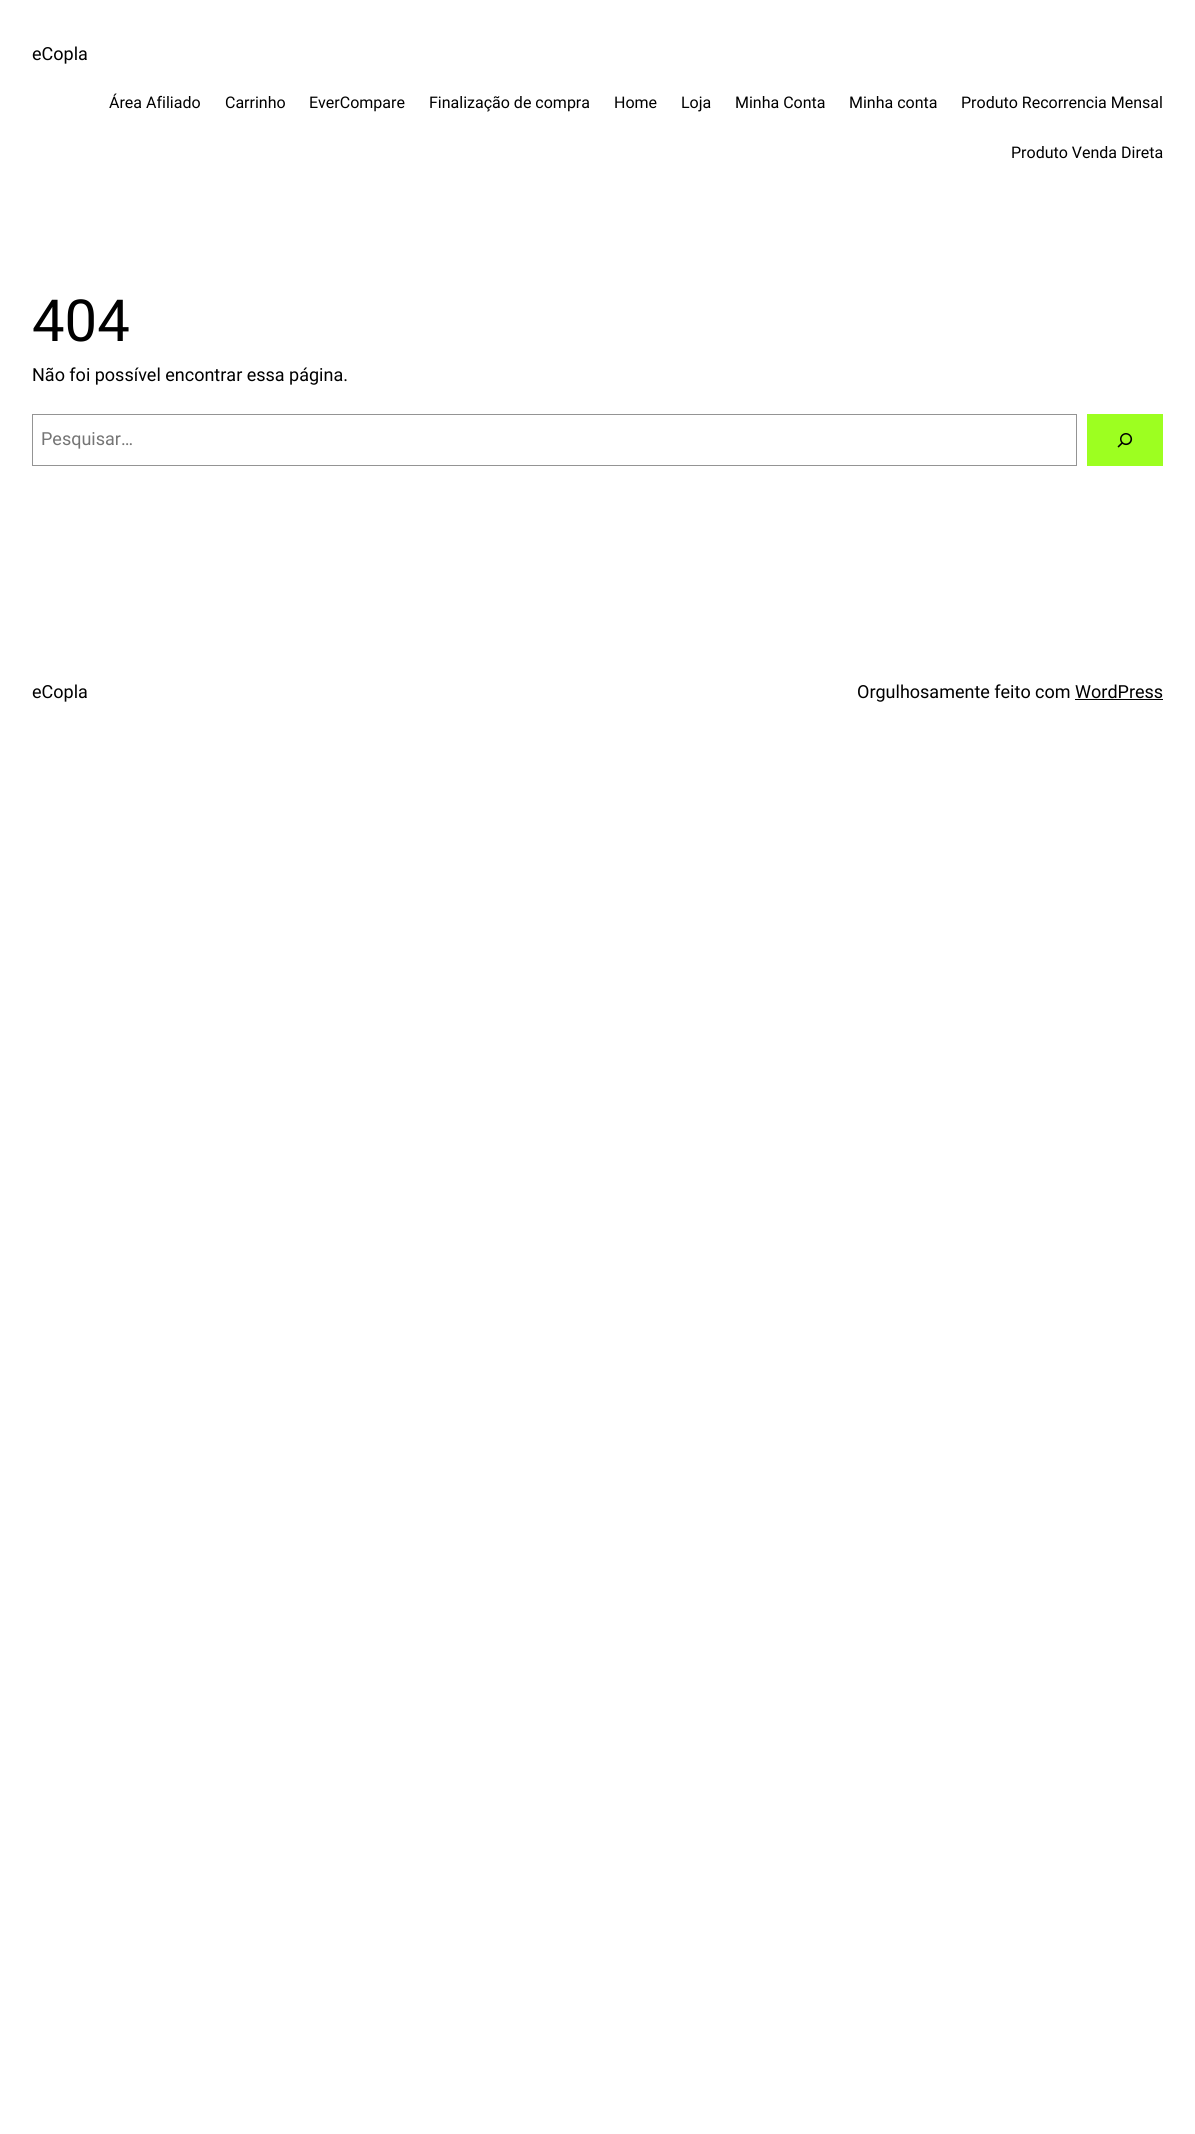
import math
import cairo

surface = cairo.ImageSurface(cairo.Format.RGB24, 1195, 2134)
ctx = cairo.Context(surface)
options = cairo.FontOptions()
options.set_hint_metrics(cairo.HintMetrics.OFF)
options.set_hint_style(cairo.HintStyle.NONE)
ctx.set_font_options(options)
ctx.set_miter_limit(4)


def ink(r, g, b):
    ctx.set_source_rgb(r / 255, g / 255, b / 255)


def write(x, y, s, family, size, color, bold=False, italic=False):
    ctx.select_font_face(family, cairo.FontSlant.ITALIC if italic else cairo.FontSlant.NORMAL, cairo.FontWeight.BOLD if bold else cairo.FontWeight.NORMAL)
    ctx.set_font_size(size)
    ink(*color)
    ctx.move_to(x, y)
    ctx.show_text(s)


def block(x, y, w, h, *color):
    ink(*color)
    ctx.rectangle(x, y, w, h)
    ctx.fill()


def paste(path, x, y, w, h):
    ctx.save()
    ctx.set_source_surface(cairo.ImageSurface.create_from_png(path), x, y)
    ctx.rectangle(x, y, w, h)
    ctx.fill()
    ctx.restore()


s1 = dict(family="Roboto", size=18, color=(0, 0, 0))
s2 = dict(family="Roboto", size=16, color=(0, 0, 0))
s3 = dict(family="Roboto", size=58, color=(0, 0, 0))
s4 = dict(family="Roboto", size=18, color=(117, 117, 117))

ink(255, 255, 255)
ctx.paint()
write(32, 60, "eCopla", **s1)
write(109, 108, "Área Afiliado", **s2)
write(225, 108, "Carrinho", **s2)
write(309, 108, "EverCompare", **s2)
write(429, 108, "Finalização de compra", **s2)
write(614, 108, "Home", **s2)
write(681, 108, "Loja", **s2)
write(735, 108, "Minha Conta", **s2)
write(849, 108, "Minha conta", **s2)
write(961, 108, "Produto Recorrencia Mensal", **s2)
write(1011, 158, "Produto Venda Direta", **s2)
write(32, 341, "404", **s3)
write(32, 381, "Não foi possível encontrar essa página.", **s1)
ctx.rectangle(32.5, 414.5, 1044, 51)
ink(148, 148, 148)
ctx.set_line_width(1)
ctx.stroke()
write(41, 445, "Pesquisar…", **s4)
block(1087, 414, 76, 52, 157, 255, 32)
paste("pic1.png", 1117, 433, 16, 15)
write(32, 698, "eCopla", **s1)
write(857, 698, "Orgulhosamente feito com WordPress", **s1)
block(1075, 699, 88, 1, 0, 0, 0)
surface.write_to_png("screenshot.png")
